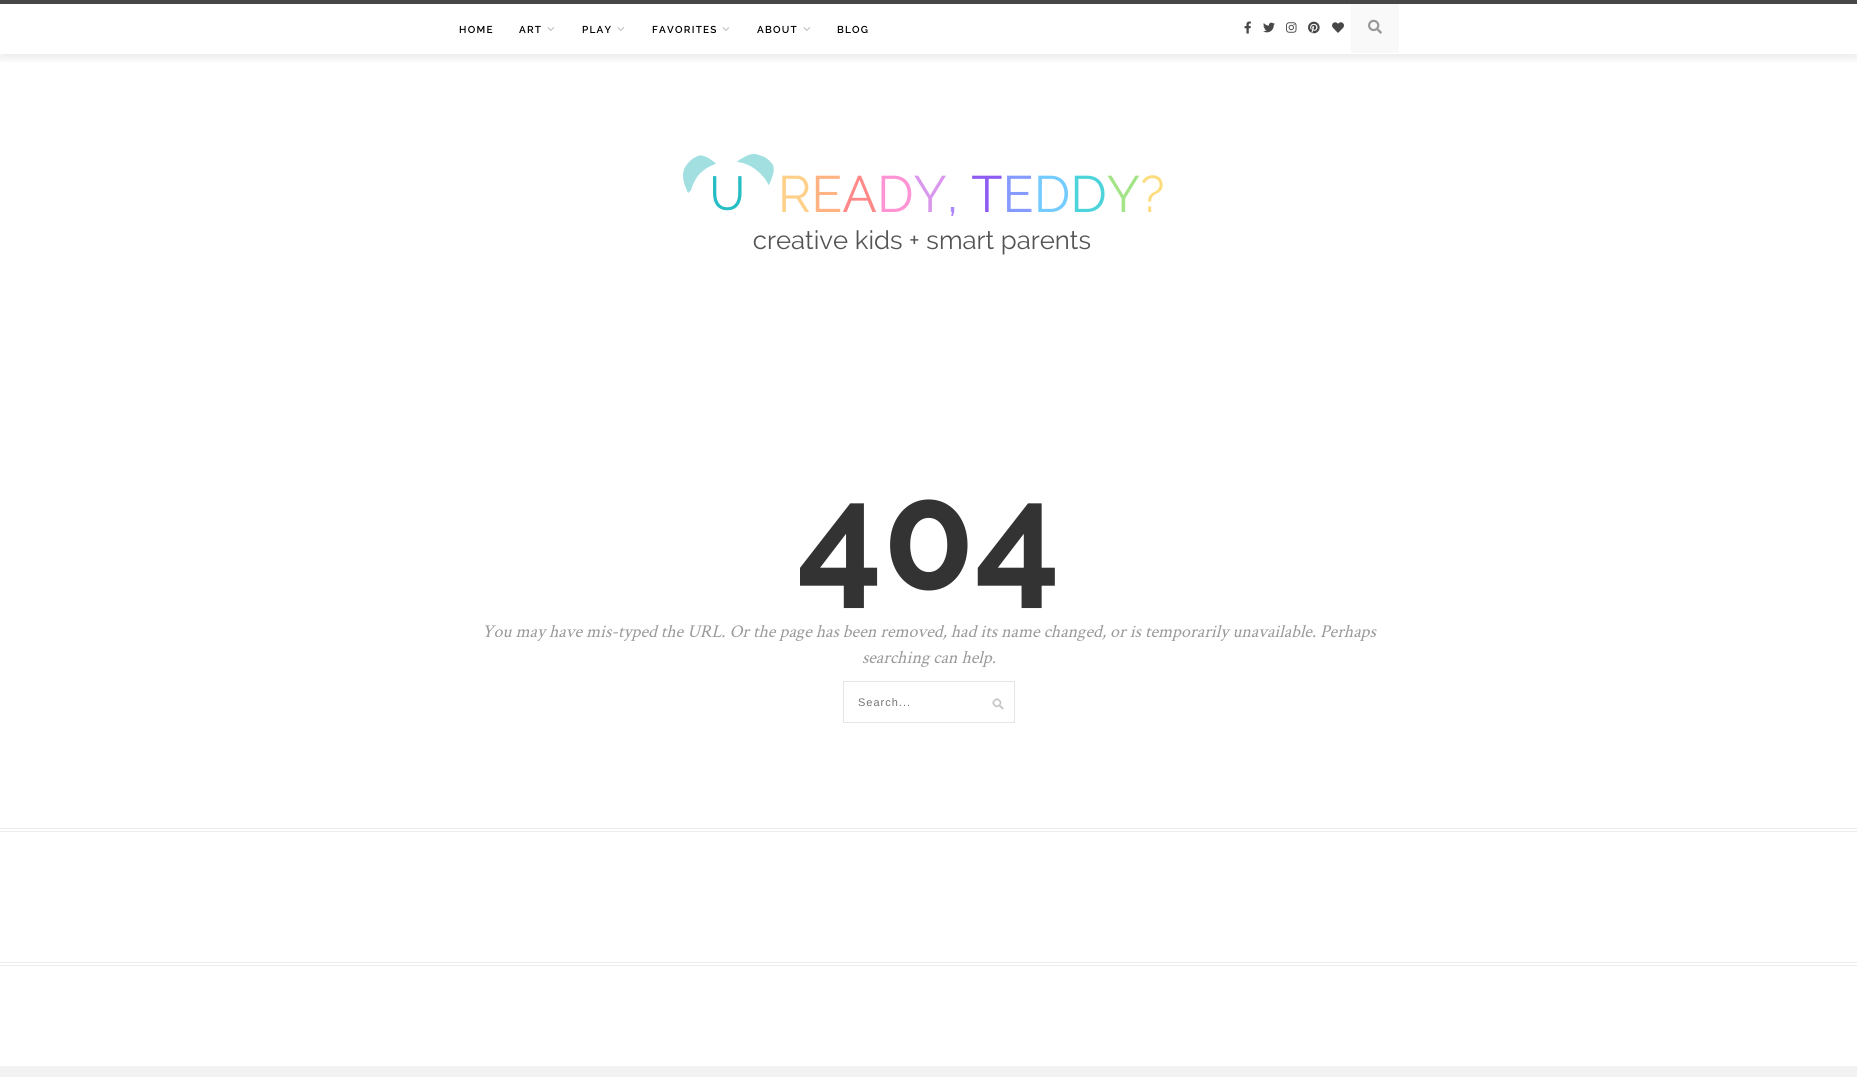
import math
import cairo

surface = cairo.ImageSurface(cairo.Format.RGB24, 1857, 1077)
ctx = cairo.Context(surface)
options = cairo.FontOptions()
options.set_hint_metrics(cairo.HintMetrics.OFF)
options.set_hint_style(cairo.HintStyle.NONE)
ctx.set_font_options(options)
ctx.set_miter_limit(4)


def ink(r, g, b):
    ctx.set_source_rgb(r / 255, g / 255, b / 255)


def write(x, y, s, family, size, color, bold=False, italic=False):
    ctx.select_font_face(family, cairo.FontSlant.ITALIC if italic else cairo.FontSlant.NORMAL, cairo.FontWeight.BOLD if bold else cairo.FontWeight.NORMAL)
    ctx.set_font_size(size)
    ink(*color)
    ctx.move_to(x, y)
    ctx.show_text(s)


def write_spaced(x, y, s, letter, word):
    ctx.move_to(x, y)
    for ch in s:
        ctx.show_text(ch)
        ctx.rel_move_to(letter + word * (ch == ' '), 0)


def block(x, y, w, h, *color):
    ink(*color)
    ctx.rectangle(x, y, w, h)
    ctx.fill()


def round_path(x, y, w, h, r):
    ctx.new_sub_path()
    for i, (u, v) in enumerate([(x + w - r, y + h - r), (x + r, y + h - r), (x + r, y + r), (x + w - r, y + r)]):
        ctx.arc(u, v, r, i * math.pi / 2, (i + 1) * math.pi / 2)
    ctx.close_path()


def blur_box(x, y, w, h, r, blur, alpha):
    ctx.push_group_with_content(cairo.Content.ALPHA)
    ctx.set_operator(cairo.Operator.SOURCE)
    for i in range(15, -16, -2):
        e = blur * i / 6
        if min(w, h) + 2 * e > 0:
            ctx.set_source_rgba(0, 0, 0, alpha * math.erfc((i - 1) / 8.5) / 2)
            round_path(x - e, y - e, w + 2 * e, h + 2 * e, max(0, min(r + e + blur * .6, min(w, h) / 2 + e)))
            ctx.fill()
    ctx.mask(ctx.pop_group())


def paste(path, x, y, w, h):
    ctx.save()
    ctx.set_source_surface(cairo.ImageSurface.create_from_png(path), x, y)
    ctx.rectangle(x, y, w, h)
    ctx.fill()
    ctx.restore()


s1 = dict(family="Raleway", size=150, color=(51, 51, 51), bold=True)
s2 = dict(family="Crimson Text", size=18, color=(153, 153, 153), italic=True)

ink(255, 255, 255)
ctx.paint()
ctx.save()
ctx.rectangle(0, 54, 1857, 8)
ctx.clip()
ink(22, 22, 22)
blur_box(0, 5, 1857, 54, 0, 4, 0.08)
ctx.restore()
block(0, 0, 1857, 4, 71, 71, 71)
ctx.select_font_face("Raleway SemiBold")
ctx.set_font_size(10)
ink(0, 0, 0)
write_spaced(459, 33, "HOME", 1.25, 0)
write_spaced(519, 33, "ART", 1.25, 0)
paste("pic1.png", 547, 27, 8, 4)
write_spaced(582, 33, "PLAY", 1.25, 0)
paste("pic1.png", 617, 27, 8, 4)
write_spaced(652, 33, "FAVORITES", 1.25, 0)
paste("pic1.png", 722, 27, 8, 4)
write_spaced(757, 33, "ABOUT", 1.25, 0)
paste("pic1.png", 803, 27, 8, 4)
write_spaced(837, 33, "BLOG", 1.25, 0)
paste("pic2.png", 1244, 21, 7, 13)
paste("pic3.png", 1263, 22, 12, 11)
paste("pic4.png", 1286, 22, 11, 11)
paste("pic5.png", 1308, 21, 12, 13)
paste("pic6.png", 1332, 22, 12, 11)
block(1351, 4, 48, 49, 249, 249, 249)
paste("pic7.png", 1368, 19, 14, 15)
paste("pic8.png", 683, 154, 480, 101)
write(797, 589, "404", **s1)
write(482, 637, "You may have mis-typed the URL. Or the page has been removed, had its name changed, or is temporarily unavailable. Perhaps", **s2)
write(862, 663, "searching can help.", **s2)
paste("pic9.png", 992, 698, 12, 12)
ctx.rectangle(843.5, 681.5, 171, 41)
ink(229, 229, 229)
ctx.set_line_width(1)
ctx.stroke()
ctx.select_font_face("Liberation Sans")
ctx.set_font_size(11)
ink(117, 117, 117)
write_spaced(858, 706, "Search...", 1, 0)
block(0, 828, 1857, 1, 236, 236, 236)
block(0, 831, 1857, 1, 236, 236, 236)
block(0, 962, 1857, 1, 236, 236, 236)
block(0, 965, 1857, 1, 236, 236, 236)
block(0, 1066, 1857, 11, 242, 242, 242)
surface.write_to_png("screenshot.png")
